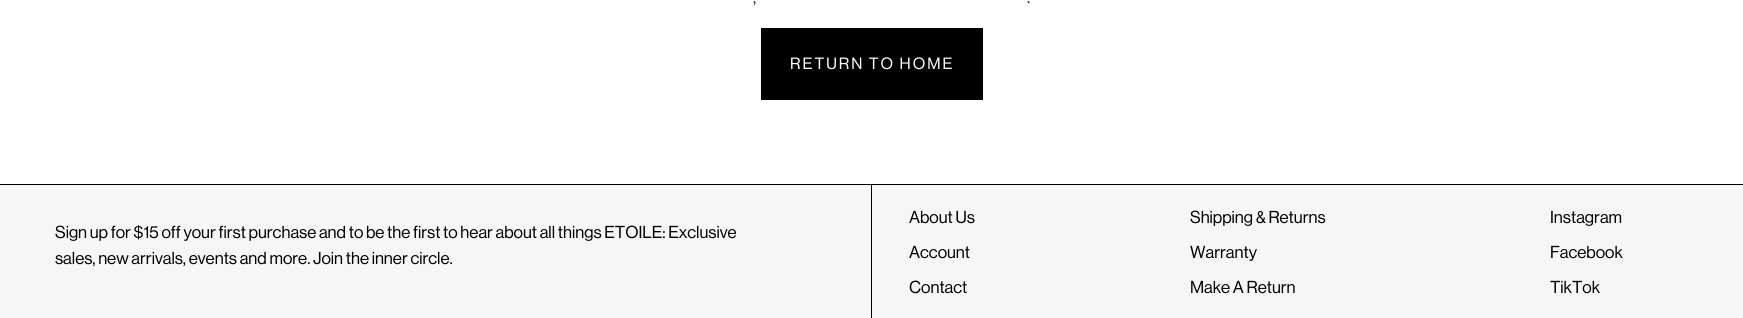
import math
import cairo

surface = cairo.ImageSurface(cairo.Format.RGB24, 1743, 318)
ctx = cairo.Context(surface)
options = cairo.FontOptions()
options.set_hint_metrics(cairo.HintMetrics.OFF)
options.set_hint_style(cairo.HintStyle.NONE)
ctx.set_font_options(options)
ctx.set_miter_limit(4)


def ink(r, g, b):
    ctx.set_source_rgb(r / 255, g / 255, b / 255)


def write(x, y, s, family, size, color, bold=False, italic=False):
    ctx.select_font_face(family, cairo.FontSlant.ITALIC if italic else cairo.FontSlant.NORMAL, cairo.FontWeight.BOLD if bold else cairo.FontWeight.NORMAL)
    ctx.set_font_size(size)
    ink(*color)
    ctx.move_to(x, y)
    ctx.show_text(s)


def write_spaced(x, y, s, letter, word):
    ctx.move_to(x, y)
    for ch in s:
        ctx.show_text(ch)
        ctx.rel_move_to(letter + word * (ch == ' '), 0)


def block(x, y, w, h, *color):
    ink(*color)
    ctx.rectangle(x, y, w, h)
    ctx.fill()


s1 = dict(family="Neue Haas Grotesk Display", size=17, color=(34, 34, 34))
s2 = dict(family="Neue Haas Grotesk Display", size=17, color=(0, 0, 0))

ink(246, 246, 246)
ctx.paint()
block(0, 0, 1743, 184, 255, 255, 255)
write(753, 3, ",", **s1)
write(1027, 3, ".", **s1)
block(761, 28, 222, 72, 0, 0, 0)
ctx.set_font_size(16)
ink(255, 255, 255)
write_spaced(790, 69, "RETURN TO HOME", 2, 0)
block(0, 184, 1743, 1, 0, 0, 0)
block(871, 185, 1, 133, 0, 0, 0)
write(55, 238, "Sign up for $15 off your first purchase and to be the first to hear about all things ETOILE: Exclusive", **s2)
write(55, 264, "sales, new arrivals, events and more. Join the inner circle.", **s2)
write(909, 223, "About Us", **s2)
write(909, 258, "Account", **s2)
write(909, 293, "Contact", **s2)
write(1190, 223, "Shipping & Returns", **s2)
write(1190, 258, "Warranty", **s2)
write(1190, 293, "Make A Return", **s2)
write(1550, 223, "Instagram", **s2)
write(1550, 258, "Facebook", **s2)
write(1550, 293, "TikTok", **s2)
surface.write_to_png("screenshot.png")
